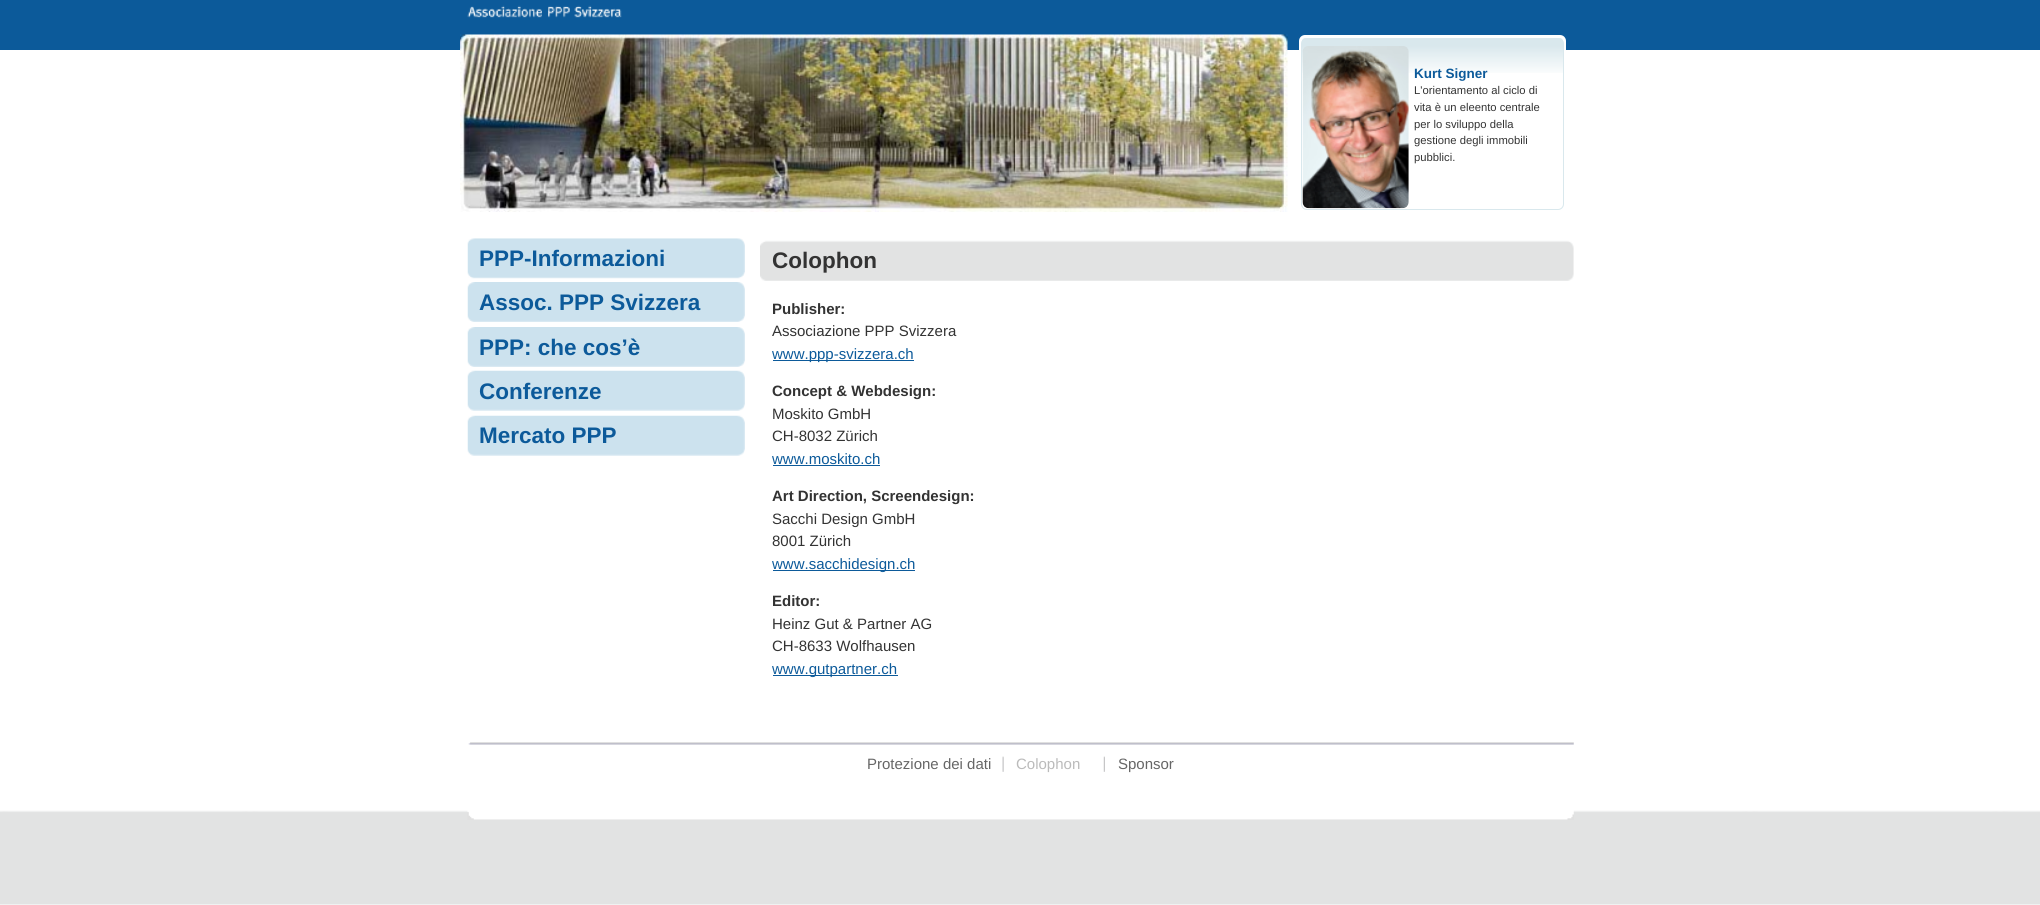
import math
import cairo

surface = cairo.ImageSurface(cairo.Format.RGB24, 2040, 905)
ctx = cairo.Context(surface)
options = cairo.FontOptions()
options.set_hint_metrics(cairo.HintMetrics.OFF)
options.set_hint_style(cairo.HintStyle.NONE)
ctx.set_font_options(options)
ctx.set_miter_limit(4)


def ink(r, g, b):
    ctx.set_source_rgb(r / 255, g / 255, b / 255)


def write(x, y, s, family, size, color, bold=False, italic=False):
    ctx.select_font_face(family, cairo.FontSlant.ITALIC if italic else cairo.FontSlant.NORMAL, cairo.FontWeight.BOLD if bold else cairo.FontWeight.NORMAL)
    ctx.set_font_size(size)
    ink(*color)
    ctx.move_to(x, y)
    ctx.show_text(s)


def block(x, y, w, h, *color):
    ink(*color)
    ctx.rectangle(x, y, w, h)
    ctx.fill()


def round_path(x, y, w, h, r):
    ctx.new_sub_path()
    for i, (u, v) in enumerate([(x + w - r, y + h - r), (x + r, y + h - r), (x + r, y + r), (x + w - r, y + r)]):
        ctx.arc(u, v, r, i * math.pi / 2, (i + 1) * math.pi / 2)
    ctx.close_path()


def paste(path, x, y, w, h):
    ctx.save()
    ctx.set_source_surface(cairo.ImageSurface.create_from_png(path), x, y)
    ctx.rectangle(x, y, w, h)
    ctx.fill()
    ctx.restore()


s1 = dict(family="Liberation Sans", size=13.5, color=(12, 90, 154), bold=True)
s2 = dict(family="Liberation Sans", size=11.25, color=(51, 51, 51))
s3 = dict(family="Liberation Sans", size=22.5, color=(12, 90, 154), bold=True)
s4 = dict(family="Liberation Sans", size=22.5, color=(51, 51, 51), bold=True)
s5 = dict(family="Liberation Sans", size=15, color=(51, 51, 51), bold=True)
s6 = dict(family="Liberation Sans", size=15, color=(51, 51, 51))
s7 = dict(family="Liberation Sans", size=15, color=(12, 90, 154))
s8 = dict(family="Liberation Sans", size=15, color=(102, 102, 102))
s9 = dict(family="Liberation Sans", size=15, color=(187, 187, 187))

ink(255, 255, 255)
ctx.paint()
paste("pic1.png", 0, 810, 2040, 95)
block(0, 0, 2040, 50, 12, 90, 154)
paste("pic2.png", 467, 5, 155, 13)
paste("pic3.png", 460, 34, 828, 178)
ink(255, 255, 255)
round_path(1300.5, 36.5, 264, 175, 4.5)
ctx.fill_preserve()
ctx.set_line_width(3)
ctx.stroke()
paste("pic4.png", 1301, 38, 263, 35)
round_path(1301.5, 38.5, 262, 171, 5.5)
ink(217, 232, 237)
ctx.set_line_width(1)
ctx.stroke()
paste("pic5.png", 1302, 46, 107, 163)
write(1414, 78, "Kurt Signer", **s1)
write(1414, 94, "L'orientamento al ciclo di", **s2)
write(1414, 111, "vita è un eleento centrale", **s2)
write(1414, 128, "per lo sviluppo della", **s2)
write(1414, 144, "gestione degli immobili", **s2)
write(1414, 161, "pubblici.", **s2)
paste("pic6.png", 467, 238, 278, 41)
write(479, 266, "PPP-Informazioni", **s3)
paste("pic7.png", 467, 282, 278, 40)
write(479, 310, "Assoc. PPP Svizzera", **s3)
paste("pic7.png", 467, 327, 278, 40)
write(479, 355, "PPP: che cos’è", **s3)
paste("pic8.png", 467, 370, 278, 41)
write(479, 399, "Conferenze", **s3)
paste("pic8.png", 467, 415, 278, 41)
write(479, 443, "Mercato PPP", **s3)
paste("pic9.png", 760, 240, 814, 41)
write(772, 268, "Colophon", **s4)
write(772, 314, "Publisher:", **s5)
write(772, 336, "Associazione PPP Svizzera", **s6)
block(773, 360, 141, 1, 12, 90, 154)
write(772, 359, "www.ppp-svizzera.ch", **s7)
write(772, 396, "Concept & Webdesign:", **s5)
write(772, 419, "Moskito GmbH", **s6)
write(772, 441, "CH-8032 Zürich", **s6)
write(772, 464, "www.moskito.ch", **s7)
block(773, 465, 107, 1, 12, 90, 154)
write(772, 501, "Art Direction, Screendesign:", **s5)
write(772, 524, "Sacchi Design GmbH", **s6)
write(772, 546, "8001 Zürich", **s6)
block(773, 570, 142, 1, 12, 90, 154)
write(772, 569, "www.sacchidesign.ch", **s7)
write(772, 606, "Editor:", **s5)
write(772, 629, "Heinz Gut & Partner AG", **s6)
write(772, 651, "CH-8633 Wolfhausen", **s6)
block(773, 675, 125, 1, 12, 90, 154)
write(772, 674, "www.gutpartner.ch", **s7)
paste("pic10.png", 467, 742, 1107, 78)
write(867, 769, "Protezione dei dati", **s8)
paste("pic11.png", 1002, 756, 2, 16)
write(1016, 769, "Colophon", **s9)
paste("pic12.png", 1103, 756, 2, 16)
write(1118, 769, "Sponsor", **s8)
surface.write_to_png("screenshot.png")
